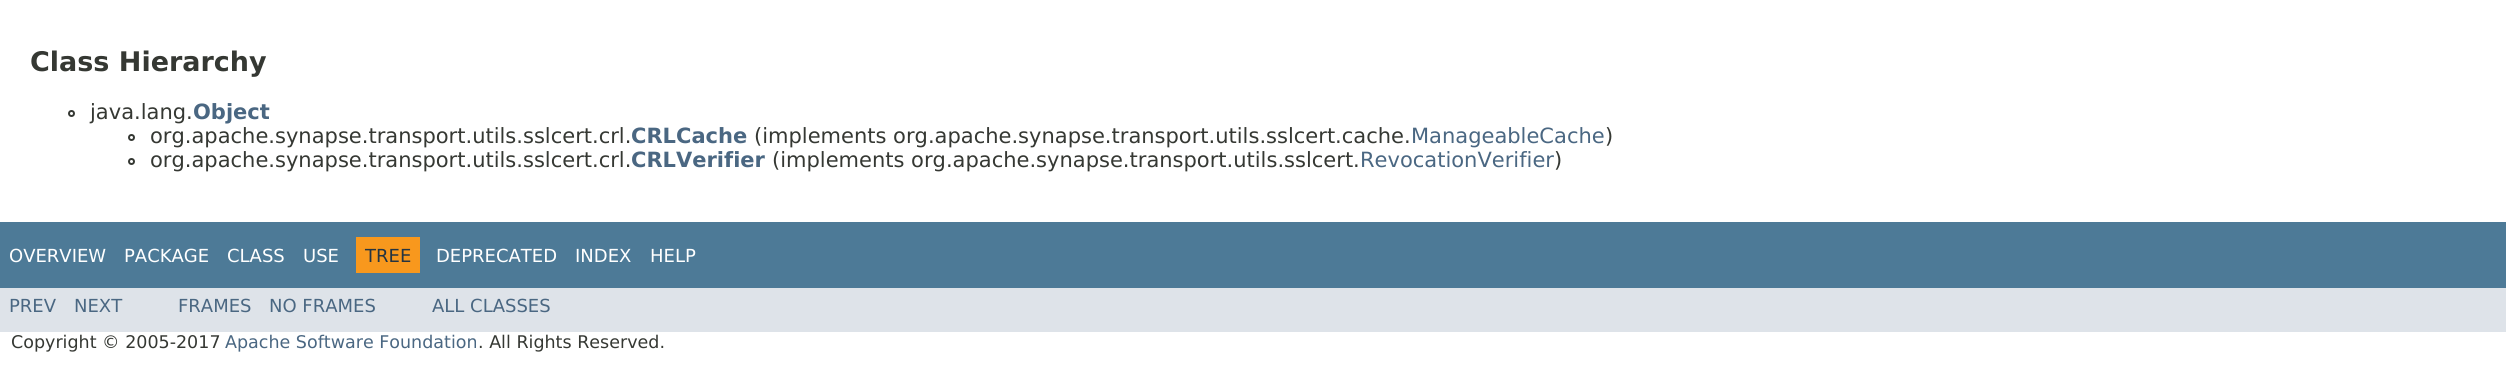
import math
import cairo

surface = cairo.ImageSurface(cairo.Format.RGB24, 2506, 373)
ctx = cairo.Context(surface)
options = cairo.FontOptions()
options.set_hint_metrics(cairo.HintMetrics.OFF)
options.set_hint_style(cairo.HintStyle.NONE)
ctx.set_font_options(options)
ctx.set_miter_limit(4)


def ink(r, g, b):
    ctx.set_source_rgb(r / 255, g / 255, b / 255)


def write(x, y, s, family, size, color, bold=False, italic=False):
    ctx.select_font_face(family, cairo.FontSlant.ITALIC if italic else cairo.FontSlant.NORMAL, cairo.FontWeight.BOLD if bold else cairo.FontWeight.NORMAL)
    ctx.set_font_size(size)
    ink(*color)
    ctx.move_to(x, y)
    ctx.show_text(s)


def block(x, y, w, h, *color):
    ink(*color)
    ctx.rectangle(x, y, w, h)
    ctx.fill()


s1 = dict(family="DejaVu Sans", size=27, color=(53, 56, 51), bold=True)
s2 = dict(family="DejaVu Sans", size=21, color=(53, 56, 51))
s3 = dict(family="DejaVu Sans", size=21, color=(74, 103, 130), bold=True)
s4 = dict(family="DejaVu Sans", size=21, color=(74, 103, 130))
s5 = dict(family="DejaVu Sans", size=18, color=(255, 255, 255))
s6 = dict(family="DejaVu Sans", size=18, color=(37, 52, 65))
s7 = dict(family="DejaVu Sans", size=18, color=(74, 103, 130))
s8 = dict(family="DejaVu Sans", size=17.5, color=(53, 56, 51))
s9 = dict(family="DejaVu Sans", size=17.5, color=(74, 103, 130))

ink(255, 255, 255)
ctx.paint()
write(30, 71, "Class Hierarchy", **s1)
ctx.new_path()
ctx.arc(71.5, 113.5, 2.5, 0, 2 * math.pi)
ctx.stroke()
write(90, 119, "java.lang.", **s2)
write(193, 119, "Object", **s3)
ctx.new_path()
ctx.arc(131.5, 137.5, 2.5, 0, 2 * math.pi)
ink(53, 56, 51)
ctx.stroke()
write(150, 143, "org.apache.synapse.transport.utils.sslcert.crl.", **s2)
write(631, 143, "CRLCache", **s3)
write(754, 143, "(implements org.apache.synapse.transport.utils.sslcert.cache.", **s2)
write(1411, 143, "ManageableCache", **s4)
write(1605, 143, ")", **s2)
ctx.new_path()
ctx.arc(131.5, 161.5, 2.5, 0, 2 * math.pi)
ctx.stroke()
write(150, 167, "org.apache.synapse.transport.utils.sslcert.crl.", **s2)
write(631, 167, "CRLVerifier", **s3)
write(772, 167, "(implements org.apache.synapse.transport.utils.sslcert.", **s2)
write(1360, 167, "RevocationVerifier", **s4)
write(1554, 167, ")", **s2)
block(0, 222, 2506, 66, 77, 122, 151)
write(9, 262, "OVERVIEW", **s5)
write(124, 262, "PACKAGE", **s5)
write(227, 262, "CLASS", **s5)
write(303, 262, "USE", **s5)
block(356, 237, 64, 36, 248, 152, 29)
write(365, 262, "TREE", **s6)
write(436, 262, "DEPRECATED", **s5)
write(575, 262, "INDEX", **s5)
write(650, 262, "HELP", **s5)
block(0, 288, 2506, 44, 222, 227, 233)
write(9, 312, "PREV", **s7)
write(74, 312, "NEXT", **s7)
write(178, 312, "FRAMES", **s7)
write(269, 312, "NO FRAMES", **s7)
write(432, 312, "ALL CLASSES", **s7)
write(11, 348, "Copyright © 2005-2017", **s8)
write(225, 348, "Apache Software Foundation", **s9)
write(478, 348, ". All Rights Reserved.", **s8)
surface.write_to_png("screenshot.png")
